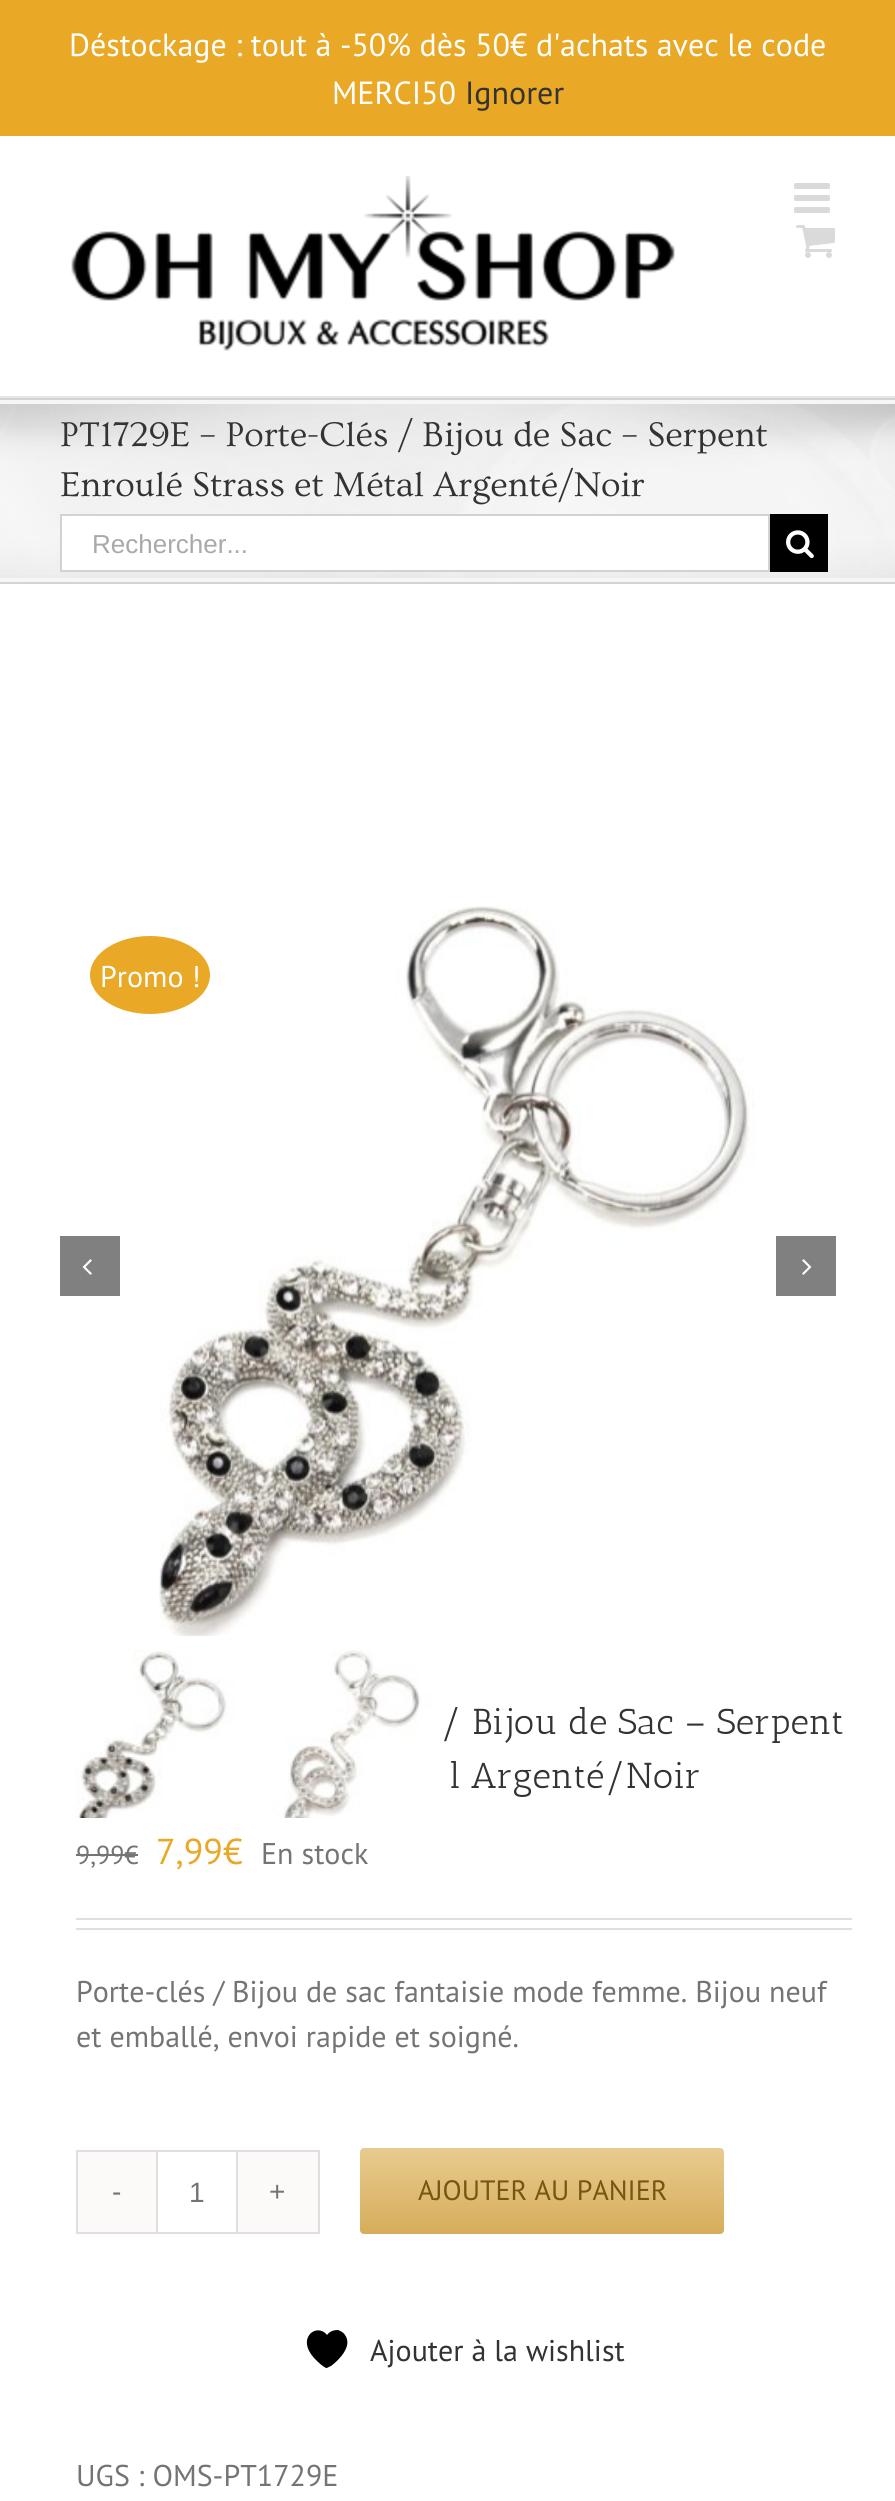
import math
import cairo

surface = cairo.ImageSurface(cairo.Format.RGB24, 895, 2501)
ctx = cairo.Context(surface)
options = cairo.FontOptions()
options.set_hint_metrics(cairo.HintMetrics.OFF)
options.set_hint_style(cairo.HintStyle.NONE)
ctx.set_font_options(options)
ctx.set_miter_limit(4)


def ink(r, g, b):
    ctx.set_source_rgb(r / 255, g / 255, b / 255)


def write(x, y, s, family, size, color, bold=False, italic=False):
    ctx.select_font_face(family, cairo.FontSlant.ITALIC if italic else cairo.FontSlant.NORMAL, cairo.FontWeight.BOLD if bold else cairo.FontWeight.NORMAL)
    ctx.set_font_size(size)
    ink(*color)
    ctx.move_to(x, y)
    ctx.show_text(s)


def block(x, y, w, h, *color):
    ink(*color)
    ctx.rectangle(x, y, w, h)
    ctx.fill()


def round_path(x, y, w, h, r):
    ctx.new_sub_path()
    for i, (u, v) in enumerate([(x + w - r, y + h - r), (x + r, y + h - r), (x + r, y + r), (x + w - r, y + r)]):
        ctx.arc(u, v, r, i * math.pi / 2, (i + 1) * math.pi / 2)
    ctx.close_path()


def paste(path, x, y, w, h):
    ctx.save()
    ctx.set_source_surface(cairo.ImageSurface.create_from_png(path), x, y)
    ctx.rectangle(x, y, w, h)
    ctx.fill()
    ctx.restore()


s1 = dict(family="PT Sans", size=32, color=(255, 255, 255))
s2 = dict(family="PT Sans", size=32, color=(51, 51, 51))
s3 = dict(family="Ovo", size=36, color=(51, 51, 51))
s4 = dict(family="Liberation Sans", size=26, color=(170, 169, 169))
s5 = dict(family="PT Sans", size=30, color=(255, 255, 255))
s6 = dict(family="Antic Slab", size=36, color=(51, 51, 51))
s7 = dict(family="PT Sans", size=26, color=(116, 116, 116))
s8 = dict(family="PT Sans", size=36, color=(233, 168, 37))
s9 = dict(family="PT Sans", size=30, color=(116, 116, 116))
s10 = dict(family="Liberation Sans", size=28, color=(116, 116, 116))
s11 = dict(family="PT Sans", size=28, color=(120, 85, 16))
s12 = dict(family="PT Sans", size=30, color=(51, 51, 51))

ink(255, 255, 255)
ctx.paint()
block(0, 0, 895, 136, 233, 168, 37)
write(69, 56, "Déstockage : tout à -50% dès 50€ d'achats avec le code", **s1)
write(332, 104, "MERCI50", **s1)
write(465, 104, "Ignorer", **s2)
block(0, 396, 895, 2, 229, 229, 229)
paste("pic1.png", 71, 176, 604, 175)
paste("pic2.png", 794, 183, 36, 30)
paste("pic3.png", 796, 225, 39, 33)
block(0, 400, 895, 182, 246, 246, 246)
paste("pic4.png", 0, 404, 895, 174)
block(0, 398, 895, 2, 210, 211, 212)
block(0, 582, 895, 2, 210, 211, 212)
write(60, 446, "PT1729E – Porte-Clés / Bijou de Sac – Serpent", **s3)
write(60, 496, "Enroulé Strass et Métal Argenté/Noir", **s3)
ink(255, 255, 255)
ctx.rectangle(61, 515, 708, 56)
ctx.fill_preserve()
ink(210, 210, 210)
ctx.stroke()
write(92, 553, "Rechercher...", **s4)
block(770, 514, 58, 58, 0, 0, 0)
paste("pic5.png", 786, 530, 28, 29)
paste("pic6.png", 159, 906, 596, 730)
block(60, 1236, 60, 60, 128, 128, 128)
paste("pic7.png", 82, 1259, 10, 16)
block(776, 1236, 60, 60, 128, 128, 128)
paste("pic8.png", 802, 1259, 10, 16)
paste("pic9.png", 75, 1650, 167, 168)
paste("pic10.png", 258, 1650, 182, 168)
ink(233, 168, 37)
ctx.new_path()
ctx.move_to(150, 936)
ctx.curve_to(183, 936, 210, 953.5, 210, 975)
ctx.curve_to(210, 996.5, 183, 1014, 150, 1014)
ctx.curve_to(117, 1014, 90, 996.5, 90, 975)
ctx.curve_to(90, 953.5, 117, 936, 150, 936)
ctx.close_path()
ctx.fill()
write(100, 987, "Promo !", **s5)
write(440, 1734, "/ Bijou de Sac – Serpent", **s6)
write(449, 1788, "l Argenté/Noir", **s6)
write(76, 1864, "9,99€", **s7)
block(76, 1854, 62, 2, 116, 116, 116)
write(156, 1864, "7,99€", **s8)
write(261, 1864, "En stock", **s9)
block(76, 1918, 776, 2, 224, 222, 222)
block(76, 1928, 776, 2, 224, 222, 222)
write(76, 2002, "Porte-clés / Bijou de sac fantaisie mode femme. Bijou neuf", **s9)
write(76, 2047, "et emballé, envoi rapide et soigné.", **s9)
ctx.rectangle(77, 2151, 242, 82)
ink(224, 222, 222)
ctx.stroke()
block(78, 2152, 78, 80, 251, 250, 249)
block(156, 2152, 2, 80, 224, 222, 222)
write(112, 2201, "-", **s10)
block(236, 2152, 2, 80, 224, 222, 222)
write(189, 2202, "1", **s10)
block(238, 2152, 80, 80, 251, 250, 249)
write(269, 2201, "+", **s10)
gradient = cairo.LinearGradient(542, 2234, 542, 2148)
gradient.add_color_stop_rgba(0, 0.839, 0.678, 0.353, 1)
gradient.add_color_stop_rgba(1, 0.91, 0.796, 0.565, 1)
ctx.set_source(gradient)
round_path(360, 2148, 364, 86, 4)
ctx.fill()
write(418, 2200, "AJOUTER AU PANIER", **s11)
ink(0, 0, 0)
ctx.new_path()
ctx.move_to(326, 2368)
ctx.curve_to(322, 2366, 318, 2362, 315, 2359)
ctx.curve_to(295, 2338, 317, 2322, 327, 2335)
ctx.curve_to(330, 2331, 334, 2330, 338, 2330)
ctx.curve_to(341, 2331, 344, 2333, 345, 2335)
ctx.curve_to(353, 2346, 339, 2360, 331, 2366)
ctx.curve_to(330, 2366, 328, 2368, 326, 2368)
ctx.close_path()
ctx.fill()
write(370, 2361, "Ajouter à la wishlist", **s12)
write(76, 2486, "UGS : OMS-PT1729E", **s9)
surface.write_to_png("screenshot.png")
